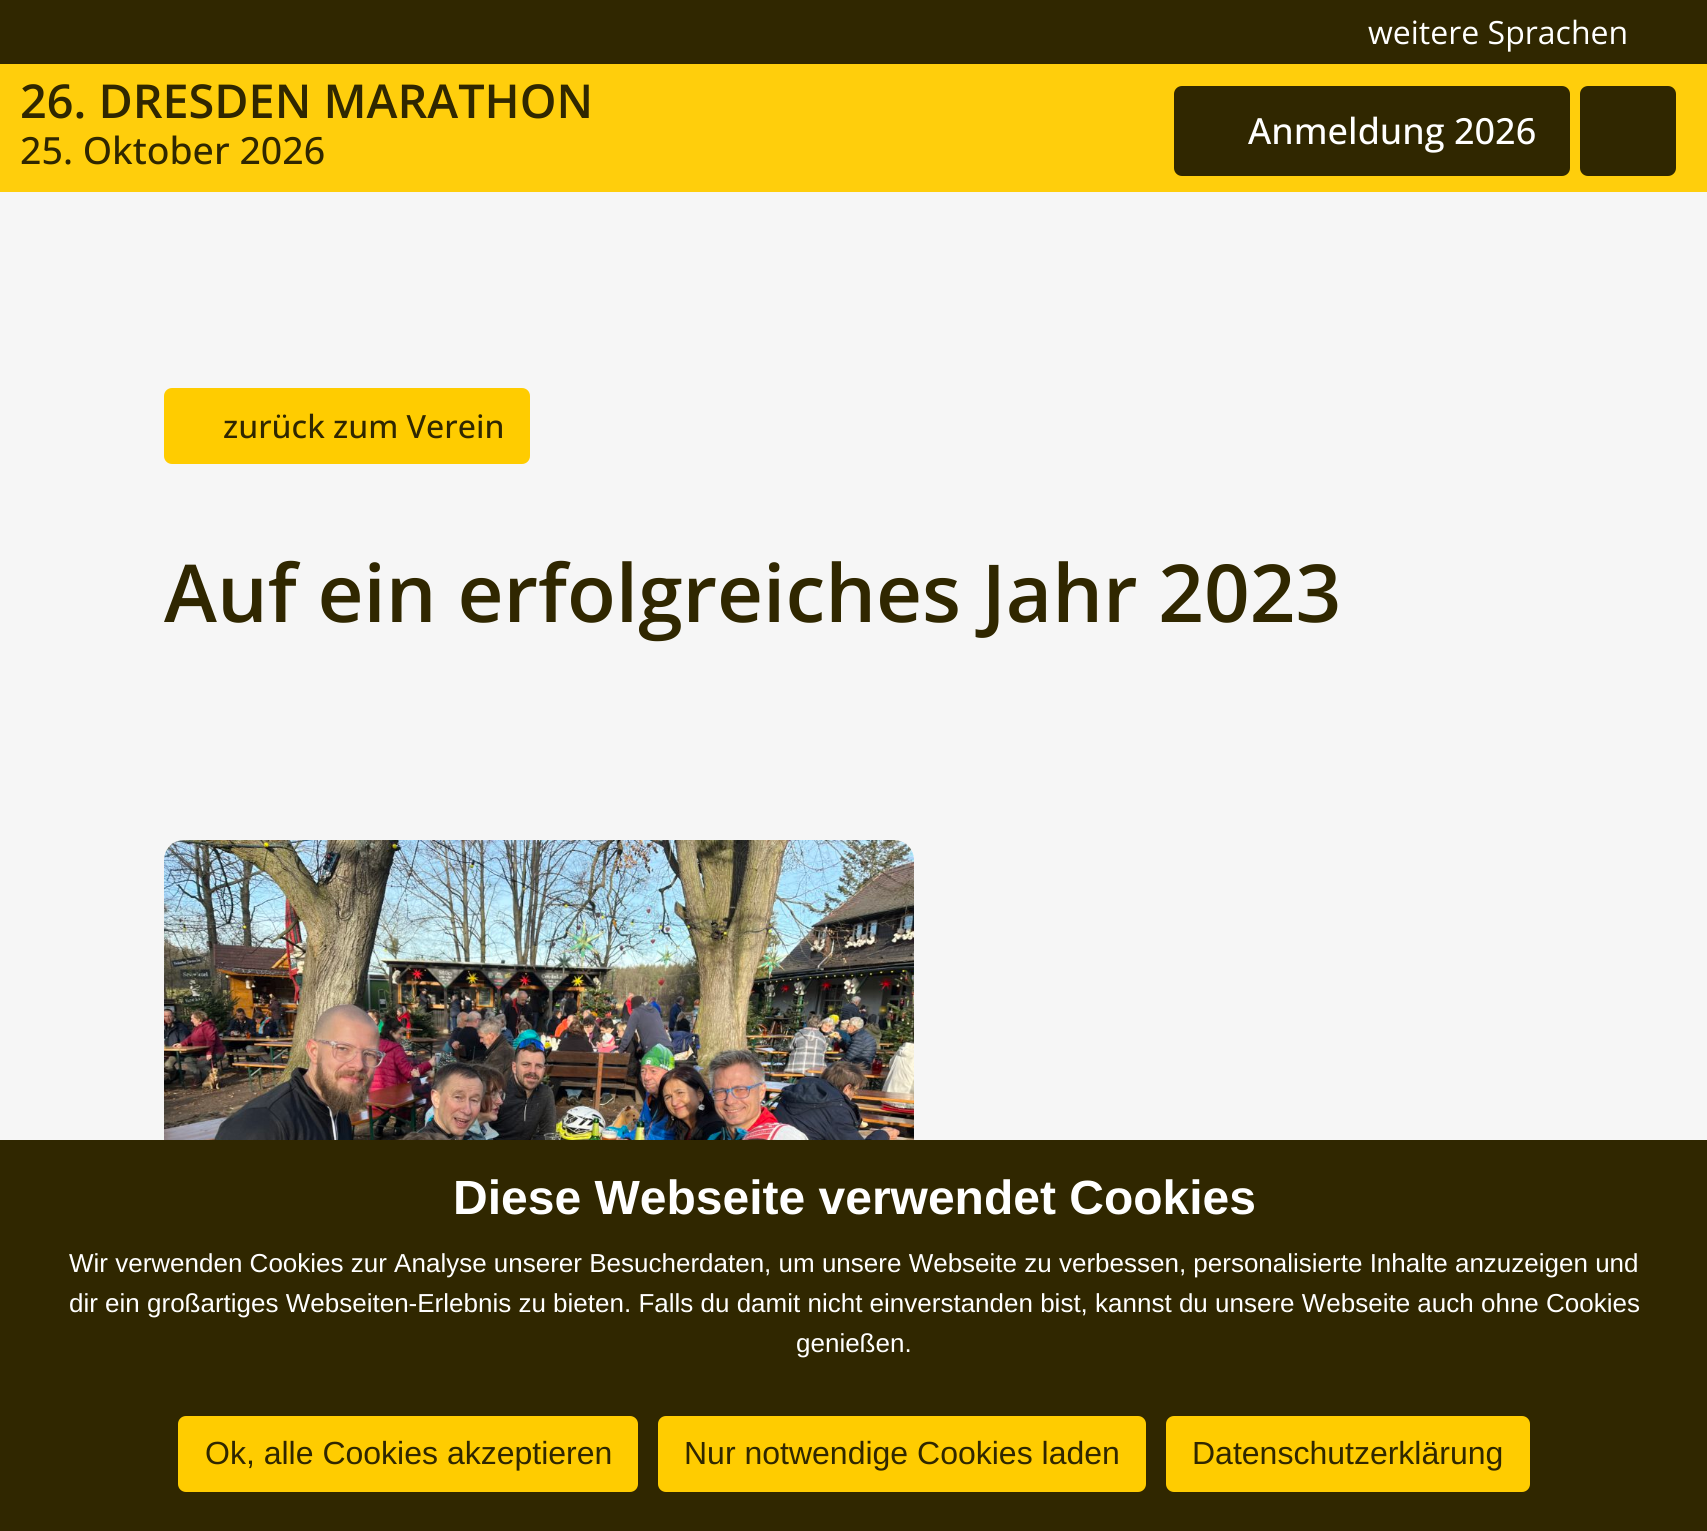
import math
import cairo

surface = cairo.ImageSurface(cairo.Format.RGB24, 1707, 1531)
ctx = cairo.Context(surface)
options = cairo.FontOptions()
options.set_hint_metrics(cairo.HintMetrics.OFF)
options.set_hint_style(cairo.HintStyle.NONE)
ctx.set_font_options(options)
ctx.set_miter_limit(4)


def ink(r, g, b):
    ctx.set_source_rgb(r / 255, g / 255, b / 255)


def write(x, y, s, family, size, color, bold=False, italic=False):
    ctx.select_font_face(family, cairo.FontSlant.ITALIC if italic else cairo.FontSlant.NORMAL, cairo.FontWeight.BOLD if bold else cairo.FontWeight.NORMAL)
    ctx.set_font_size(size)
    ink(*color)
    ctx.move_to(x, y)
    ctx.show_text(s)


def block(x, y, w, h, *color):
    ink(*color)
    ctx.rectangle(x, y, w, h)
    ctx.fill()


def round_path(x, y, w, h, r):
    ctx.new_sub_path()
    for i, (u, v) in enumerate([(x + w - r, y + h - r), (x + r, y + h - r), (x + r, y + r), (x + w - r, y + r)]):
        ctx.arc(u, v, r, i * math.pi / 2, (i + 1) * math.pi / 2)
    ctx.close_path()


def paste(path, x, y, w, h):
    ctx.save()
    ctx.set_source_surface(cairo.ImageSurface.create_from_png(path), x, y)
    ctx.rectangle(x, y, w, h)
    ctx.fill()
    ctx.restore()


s1 = dict(family="Open Sans", size=32, color=(255, 255, 255))
s2 = dict(family="Open Sans SemiBold", size=46.75, color=(48, 39, 0))
s3 = dict(family="Open Sans Medium", size=37.5, color=(48, 39, 0))
s4 = dict(family="Open Sans Medium", size=36, color=(255, 255, 255))
s5 = dict(family="Open Sans Medium", size=32, color=(48, 39, 0))
s6 = dict(family="Open Sans SemiBold", size=80, color=(48, 39, 0))
s7 = dict(family="Liberation Sans", size=48, color=(255, 255, 255), bold=True)
s8 = dict(family="Liberation Sans", size=26, color=(255, 255, 255))
s9 = dict(family="Liberation Sans", size=32, color=(48, 39, 0))

ink(246, 246, 246)
ctx.paint()
block(0, 0, 1707, 64, 48, 39, 0)
write(1368, 44, "weitere Sprachen", **s1)
block(0, 64, 1707, 128, 255, 206, 12)
write(20, 118, "26. DRESDEN MARATHON", **s2)
write(20, 164, "25. Oktober 2026", **s3)
round_path(1175, 87, 394, 88, 7)
ctx.fill_preserve()
ctx.stroke()
write(1248, 144, "Anmeldung 2026", **s4)
ink(48, 39, 0)
round_path(1581, 87, 94, 88, 7)
ctx.fill_preserve()
ctx.stroke()
ink(255, 204, 0)
round_path(165, 389, 364, 74, 7)
ctx.fill_preserve()
ctx.stroke()
write(223, 438, "zurück zum Verein", **s5)
write(164, 622, "Auf ein erfolgreiches Jahr 2023", **s6)
paste("pic1.png", 164, 840, 750, 300)
block(0, 1140, 1707, 391, 48, 39, 0)
write(453, 1214, "Diese Webseite verwendet Cookies", **s7)
write(69, 1272, "Wir verwenden Cookies zur Analyse unserer Besucherdaten, um unsere Webseite zu verbessen, personalisierte Inhalte anzuzeigen und", **s8)
write(69, 1312, "dir ein großartiges Webseiten-Erlebnis zu bieten. Falls du damit nicht einverstanden bist, kannst du unsere Webseite auch ohne Cookies", **s8)
write(796, 1352, "genießen.", **s8)
ink(255, 204, 0)
round_path(179, 1417, 458, 74, 7)
ctx.fill_preserve()
ctx.stroke()
write(205, 1464, "Ok, alle Cookies akzeptieren", **s9)
ink(255, 204, 0)
round_path(659, 1417, 486, 74, 7)
ctx.fill_preserve()
ctx.stroke()
write(684, 1464, "Nur notwendige Cookies laden", **s9)
ink(255, 204, 0)
round_path(1167, 1417, 362, 74, 7)
ctx.fill_preserve()
ctx.stroke()
write(1192, 1464, "Datenschutzerklärung", **s9)
surface.write_to_png("screenshot.png")
